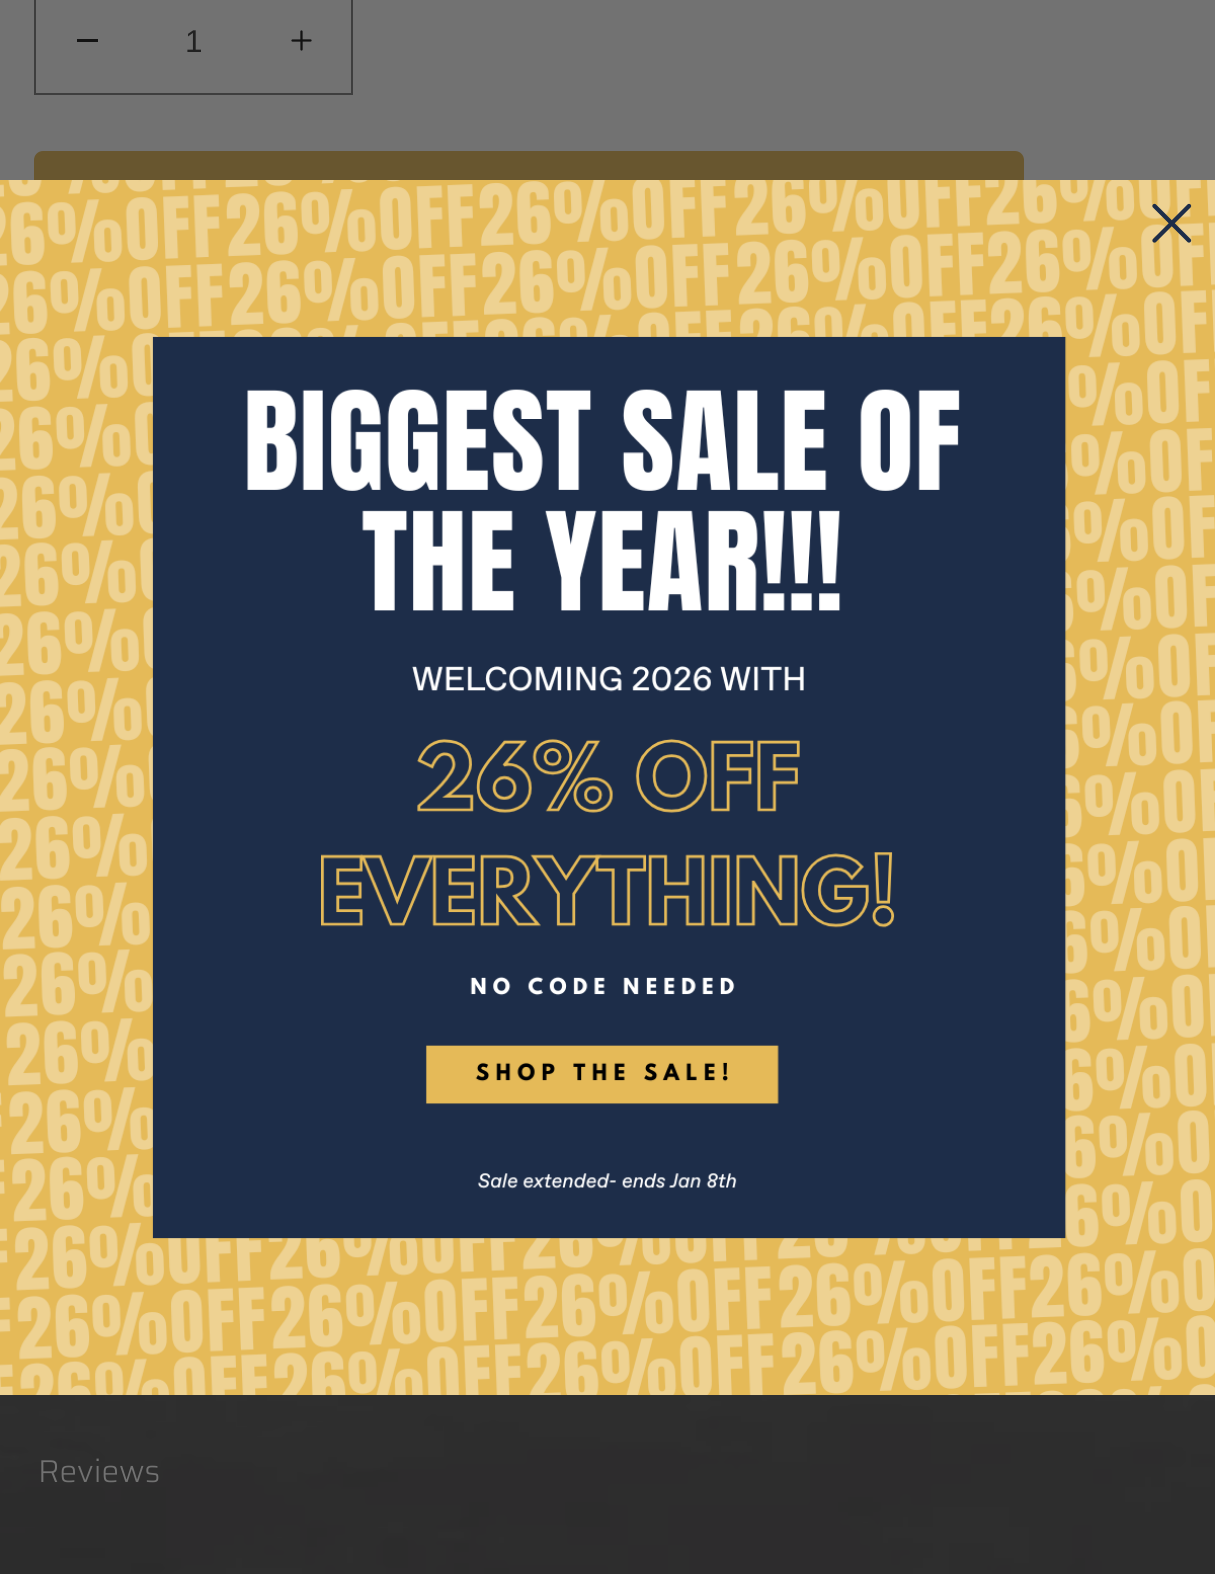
import math
import cairo

surface = cairo.ImageSurface(cairo.Format.RGB24, 1215, 1574)
ctx = cairo.Context(surface)
options = cairo.FontOptions()
options.set_hint_metrics(cairo.HintMetrics.OFF)
options.set_hint_style(cairo.HintStyle.NONE)
ctx.set_font_options(options)
ctx.set_miter_limit(4)


def ink(r, g, b):
    ctx.set_source_rgb(r / 255, g / 255, b / 255)


def write(x, y, s, family, size, color, bold=False, italic=False):
    ctx.select_font_face(family, cairo.FontSlant.ITALIC if italic else cairo.FontSlant.NORMAL, cairo.FontWeight.BOLD if bold else cairo.FontWeight.NORMAL)
    ctx.set_font_size(size)
    ink(*color)
    ctx.move_to(x, y)
    ctx.show_text(s)


def block(x, y, w, h, *color):
    ink(*color)
    ctx.rectangle(x, y, w, h)
    ctx.fill()


def round_path(x, y, w, h, r):
    ctx.new_sub_path()
    for i, (u, v) in enumerate([(x + w - r, y + h - r), (x + r, y + h - r), (x + r, y + r), (x + w - r, y + r)]):
        ctx.arc(u, v, r, i * math.pi / 2, (i + 1) * math.pi / 2)
    ctx.close_path()


def paste(path, x, y, w, h):
    ctx.save()
    ctx.set_source_surface(cairo.ImageSurface.create_from_png(path), x, y)
    ctx.rectangle(x, y, w, h)
    ctx.fill()
    ctx.restore()


s1 = dict(family="Liberation Sans", size=31.5, color=(34, 34, 34))
s2 = dict(family="Saira Light", size=31.5, color=(114, 114, 114))

ink(114, 114, 114)
ctx.paint()
block(77, 39, 21, 3, 19, 19, 19)
paste("pic1.png", 291, 30, 21, 21)
ctx.rectangle(35, -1, 317, 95)
ink(62, 62, 62)
ctx.stroke()
write(185, 52, "1", **s1)
ink(104, 86, 47)
round_path(35, 152, 988, 104, 8)
ctx.fill_preserve()
ctx.stroke()
paste("pic2.png", 0, 180, 1215, 1215)
ctx.new_path()
ctx.move_to(1154.5, 206)
ctx.line_to(1189, 240.5)
ctx.move_to(1154.5, 240.5)
ctx.line_to(1189, 206)
ctx.close_path()
ink(29, 45, 73)
ctx.set_line_width(4.3)
ctx.set_line_cap(cairo.LineCap.ROUND)
ctx.set_line_join(cairo.LineJoin.ROUND)
ctx.stroke()
paste("pic3.png", 0, 1395, 1215, 179)
write(38, 1482, "Reviews", **s2)
surface.write_to_png("screenshot.png")
